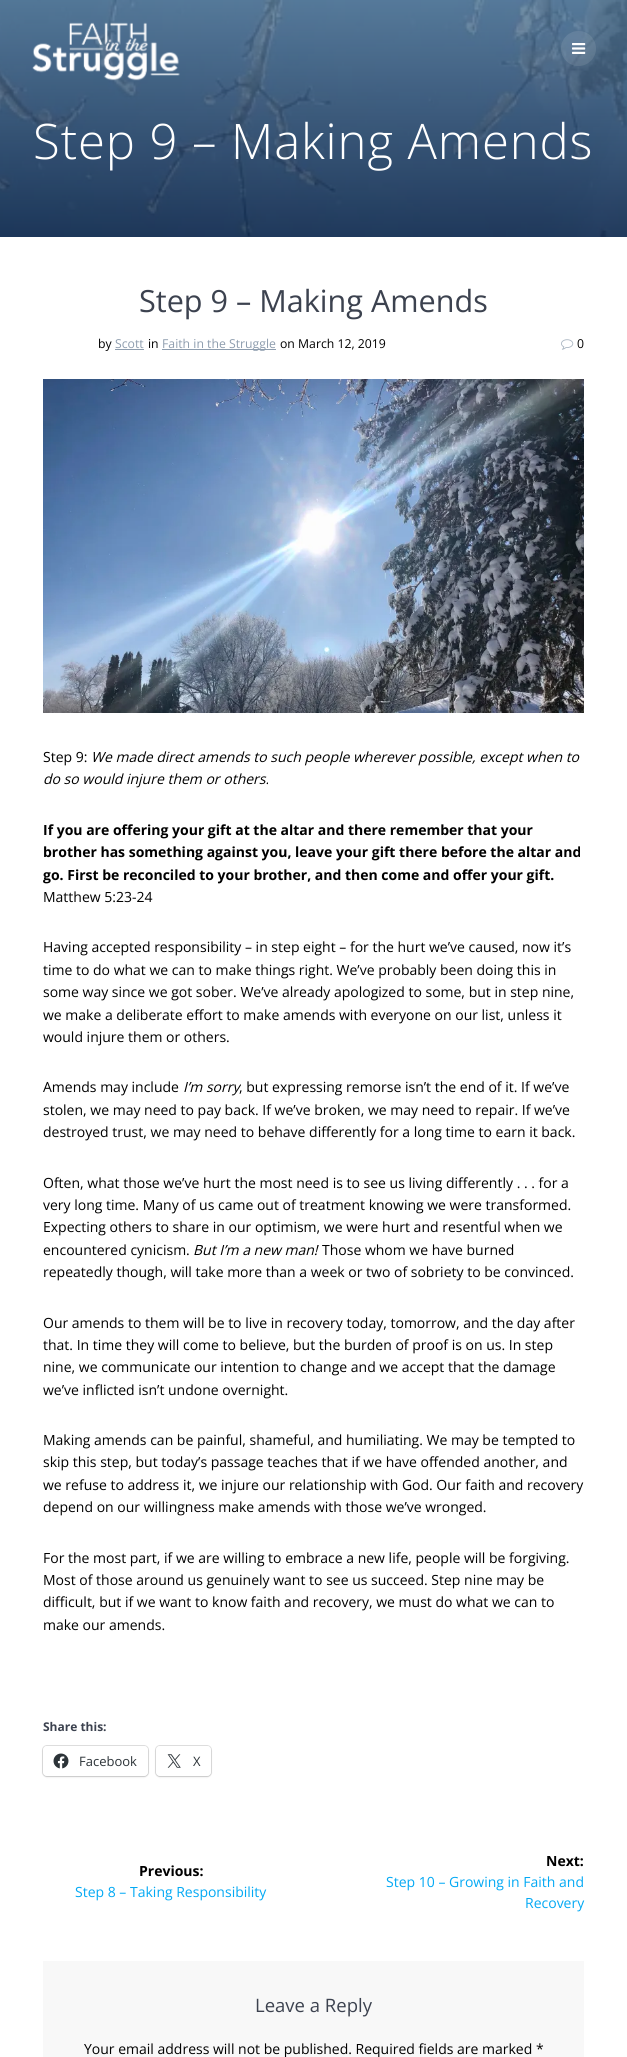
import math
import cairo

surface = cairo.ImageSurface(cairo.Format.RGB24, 627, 2057)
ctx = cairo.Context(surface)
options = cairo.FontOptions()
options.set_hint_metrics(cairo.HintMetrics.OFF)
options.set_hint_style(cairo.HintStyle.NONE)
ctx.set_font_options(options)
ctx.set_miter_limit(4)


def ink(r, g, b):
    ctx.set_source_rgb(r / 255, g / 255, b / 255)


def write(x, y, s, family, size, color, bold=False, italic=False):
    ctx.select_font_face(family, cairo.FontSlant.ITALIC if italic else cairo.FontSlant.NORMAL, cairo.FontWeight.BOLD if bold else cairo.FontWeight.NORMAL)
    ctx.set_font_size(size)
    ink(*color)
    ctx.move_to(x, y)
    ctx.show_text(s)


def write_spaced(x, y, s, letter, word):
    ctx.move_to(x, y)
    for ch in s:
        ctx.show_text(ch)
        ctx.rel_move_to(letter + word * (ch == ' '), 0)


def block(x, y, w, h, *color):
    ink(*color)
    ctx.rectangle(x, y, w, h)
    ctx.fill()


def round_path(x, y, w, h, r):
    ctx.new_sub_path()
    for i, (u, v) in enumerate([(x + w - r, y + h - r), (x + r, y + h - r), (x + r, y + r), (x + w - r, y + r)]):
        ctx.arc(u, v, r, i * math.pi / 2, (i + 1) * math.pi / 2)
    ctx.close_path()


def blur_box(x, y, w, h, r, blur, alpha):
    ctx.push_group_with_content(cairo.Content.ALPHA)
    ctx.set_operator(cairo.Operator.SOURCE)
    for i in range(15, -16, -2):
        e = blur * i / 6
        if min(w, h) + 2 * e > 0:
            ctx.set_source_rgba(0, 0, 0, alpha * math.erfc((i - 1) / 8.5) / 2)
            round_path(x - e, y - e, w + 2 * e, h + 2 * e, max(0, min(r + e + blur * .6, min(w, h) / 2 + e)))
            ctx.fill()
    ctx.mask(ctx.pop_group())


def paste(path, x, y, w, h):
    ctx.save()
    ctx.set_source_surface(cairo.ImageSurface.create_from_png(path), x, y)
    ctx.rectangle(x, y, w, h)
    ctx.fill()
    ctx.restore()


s1 = dict(family="Open Sans", size=30.6, color=(60, 66, 79))
s2 = dict(family="Open Sans", size=12.25, color=(0, 0, 0))
s3 = dict(family="Open Sans", size=12.25, color=(142, 157, 174))
s4 = dict(family="Open Sans", size=14, color=(0, 0, 0))
s5 = dict(family="Open Sans", size=14, color=(0, 0, 0), italic=True)
s6 = dict(family="Open Sans", size=14, color=(0, 0, 0), bold=True)
s7 = dict(family="Open Sans", size=12, color=(60, 66, 79), bold=True)
s8 = dict(family="Open Sans", size=13, color=(44, 51, 56))
s9 = dict(family="Open Sans", size=14, color=(3, 169, 244))
s10 = dict(family="Open Sans", size=18.5, color=(60, 66, 79))

ink(255, 255, 255)
ctx.paint()
paste("pic3.png", 0, 0, 627, 237)
paste("pic1.png", 32, 22, 148, 59)
ctx.set_source_rgba(1, 1, 1, 0.1)
ctx.arc(578.5, 48.5, 17.5, 0, 2 * math.pi)
ctx.fill()
paste("pic2.png", 572, 43, 14, 11)
ctx.select_font_face("Open Sans Light")
ctx.set_font_size(49)
ink(255, 255, 255)
write_spaced(33, 159, "Step 9 – Making Amends", 0.9, 0)
write(139, 312, "Step 9 – Making Amends", **s1)
write(98, 348, "by", **s2)
write(115, 348, "Scott", **s3)
block(115, 349, 29, 1, 142, 157, 174)
write(148, 348, "in", **s2)
block(162, 349, 114, 1, 142, 157, 174)
write(162, 348, "Faith in the Struggle", **s3)
write(280, 348, "on March 12, 2019", **s2)
paste("pic4.png", 561, 339, 13, 11)
write(577, 348, "0", **s2)
paste("pic5.png", 43, 379, 541, 334)
write(43, 762, "Step 9:", **s4)
write(91, 762, "We made direct amends to such people wherever possible, except when to", **s5)
write(43, 784, "do so would injure them or others.", **s5)
write(43, 835, "If you are offering your gift at the altar and there remember that your", **s6)
write(43, 857, "brother has something against you, leave your gift there before the altar and", **s6)
write(43, 880, "go. First be reconciled to your brother, and then come and offer your gift.", **s6)
write(43, 902, "Matthew 5:23-24", **s4)
write(43, 952, "Having accepted responsibility – in step eight – for the hurt we’ve caused, now it’s", **s4)
write(43, 975, "time to do what we can to make things right. We’ve probably been doing this in", **s4)
write(43, 997, "some way since we got sober. We’ve already apologized to some, but in step nine,", **s4)
write(43, 1020, "we make a deliberate effort to make amends with everyone on our list, unless it", **s4)
write(43, 1042, "would injure them or others.", **s4)
write(43, 1092, "Amends may include", **s4)
write(183, 1092, "I’m sorry", **s5)
write(239, 1092, ", but expressing remorse isn’t the end of it. If we’ve", **s4)
write(43, 1115, "stolen, we may need to pay back. If we’ve broken, we may need to repair. If we’ve", **s4)
write(43, 1137, "destroyed trust, we may need to behave differently for a long time to earn it back.", **s4)
write(43, 1188, "Often, what those we’ve hurt the most need is to see us living differently . . . for a", **s4)
write(43, 1210, "very long time. Many of us came out of treatment knowing we were transformed.", **s4)
write(43, 1232, "Expecting others to share in our optimism, we were hurt and resentful when we", **s4)
write(43, 1255, "encountered cynicism.", **s4)
write(193, 1255, "But I’m a new man!", **s5)
write(322, 1255, "Those whom we have burned", **s4)
write(43, 1277, "repeatedly though, will take more than a week or two of sobriety to be convinced.", **s4)
write(43, 1328, "Our amends to them will be to live in recovery today, tomorrow, and the day after", **s4)
write(43, 1350, "that. In time they will come to believe, but the burden of proof is on us. In step", **s4)
write(43, 1372, "nine, we communicate our intention to change and we accept that the damage", **s4)
write(43, 1395, "we’ve inflicted isn’t undone overnight.", **s4)
write(43, 1445, "Making amends can be painful, shameful, and humiliating. We may be tempted to", **s4)
write(43, 1467, "skip this step, but today’s passage teaches that if we have offended another, and", **s4)
write(43, 1490, "we refuse to address it, we injure our relationship with God. Our faith and recovery", **s4)
write(43, 1512, "depend on our willingness make amends with those we’ve wronged.", **s4)
write(43, 1563, "For the most part, if we are willing to embrace a new life, people will be forgiving.", **s4)
write(43, 1585, "Most of those around us genuinely want to see us succeed. Step nine may be", **s4)
write(43, 1607, "difficult, but if we want to know faith and recovery, we must do what we can to", **s4)
write(43, 1630, "make our amends.", **s4)
write(43, 1731, "Share this:", **s7)
round_path(42.5, 1745.5, 106, 31, 4.5)
ink(224, 224, 224)
ctx.set_line_width(1)
ctx.stroke()
ink(0, 0, 0)
blur_box(43, 1747, 105, 30, 4, 1, 0.12)
ink(255, 255, 255)
round_path(43, 1746, 105, 30, 4)
ctx.fill()
paste("pic6.png", 53, 1753, 16, 16)
write(79, 1766, "Facebook", **s8)
round_path(155.5, 1745.5, 56, 31, 4.5)
ink(224, 224, 224)
ctx.stroke()
ink(0, 0, 0)
blur_box(156, 1747, 55, 30, 4, 1, 0.12)
ink(255, 255, 255)
round_path(156, 1746, 55, 30, 4)
ctx.fill()
paste("pic7.png", 167, 1754, 14, 14)
write(193, 1766, "X", **s8)
write(139, 1876, "Previous:", **s6)
write(75, 1897, "Step 8 – Taking Responsibility", **s9)
write(546, 1866, "Next:", **s6)
write(386, 1887, "Step 10 – Growing in Faith and", **s9)
write(525, 1908, "Recovery", **s9)
block(43, 1961, 541, 96, 248, 248, 248)
write(255, 2012, "Leave a Reply", **s10)
write(84, 2054, "Your email address will not be published. Required fields are marked *", **s4)
surface.write_to_png("screenshot.png")
